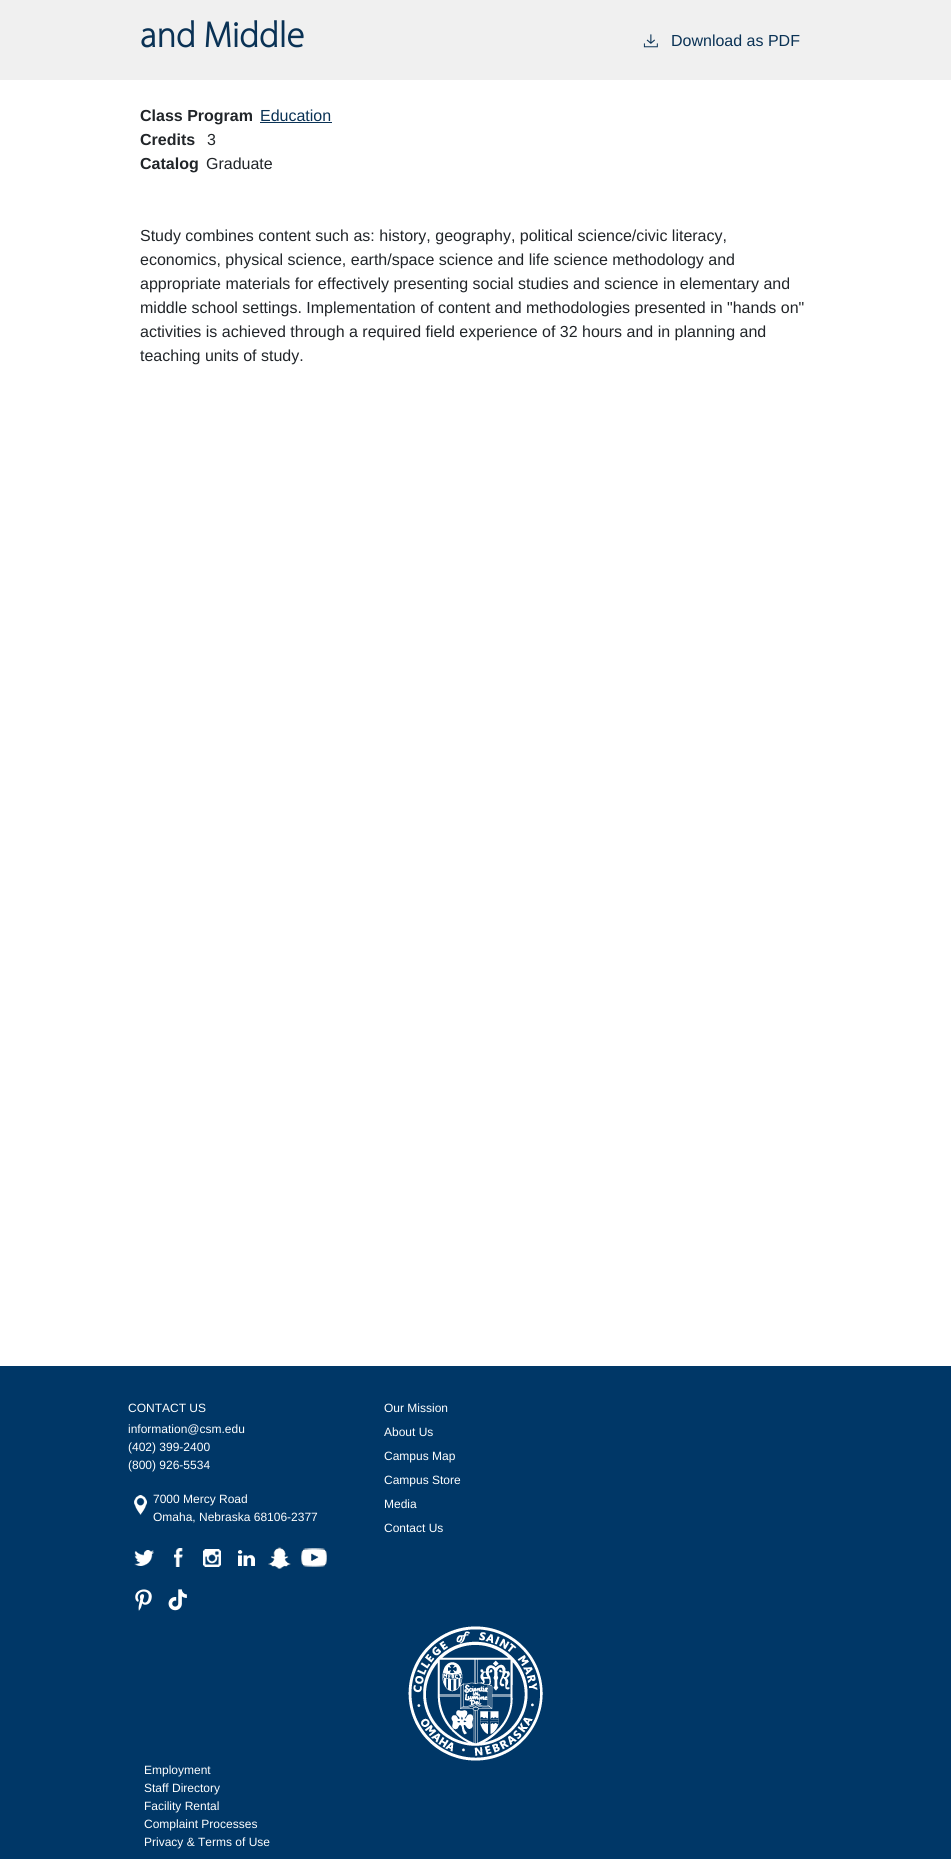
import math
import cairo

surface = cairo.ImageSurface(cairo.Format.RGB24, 951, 1859)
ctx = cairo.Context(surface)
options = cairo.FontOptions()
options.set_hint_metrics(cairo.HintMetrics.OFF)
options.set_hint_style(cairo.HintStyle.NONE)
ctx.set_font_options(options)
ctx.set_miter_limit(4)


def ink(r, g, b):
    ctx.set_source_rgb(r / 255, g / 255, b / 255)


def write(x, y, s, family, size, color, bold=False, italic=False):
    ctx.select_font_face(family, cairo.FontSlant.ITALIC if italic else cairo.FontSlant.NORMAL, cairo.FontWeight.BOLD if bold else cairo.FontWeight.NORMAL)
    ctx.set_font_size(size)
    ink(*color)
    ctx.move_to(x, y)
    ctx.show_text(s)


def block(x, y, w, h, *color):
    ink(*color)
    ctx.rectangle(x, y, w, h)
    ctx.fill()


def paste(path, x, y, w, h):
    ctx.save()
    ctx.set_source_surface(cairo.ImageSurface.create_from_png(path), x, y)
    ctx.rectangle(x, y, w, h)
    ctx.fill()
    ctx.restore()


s1 = dict(family="Myriad", size=36.25, color=(10, 50, 85), bold=True)
s2 = dict(family="Liberation Sans", size=16, color=(10, 50, 85))
s3 = dict(family="Liberation Sans", size=16, color=(33, 37, 41), bold=True)
s4 = dict(family="Liberation Sans", size=16, color=(33, 37, 41))
s5 = dict(family="Liberation Sans", size=12, color=(255, 255, 255))

ink(255, 255, 255)
ctx.paint()
block(0, 0, 951, 80, 240, 240, 240)
write(140, 47, "and Middle", **s1)
paste("pic1.png", 643, 34, 15, 14)
write(671, 46, "Download as PDF", **s2)
write(140, 121, "Class Program", **s3)
write(260, 121, "Education", **s2)
block(260, 122, 72, 1, 10, 50, 85)
write(140, 145, "Credits", **s3)
write(207, 145, "3", **s4)
write(140, 169, "Catalog", **s3)
write(206, 169, "Graduate", **s4)
write(140, 241, "Study combines content such as: history, geography, political science/civic literacy,", **s4)
write(140, 265, "economics, physical science, earth/space science and life science methodology and", **s4)
write(140, 289, "appropriate materials for effectively presenting social studies and science in elementary and", **s4)
write(140, 313, "middle school settings. Implementation of content and methodologies presented in \"hands on\"", **s4)
write(140, 337, "activities is achieved through a required field experience of 32 hours and in planning and", **s4)
write(140, 361, "teaching units of study.", **s4)
block(0, 1366, 951, 493, 0, 55, 103)
write(128, 1412, "CONTACT US", **s5)
write(128, 1433, "information@csm.edu", **s5)
write(128, 1451, "(402) 399-2400", **s5)
write(128, 1469, "(800) 926-5534", **s5)
paste("pic2.png", 134, 1495, 13, 20)
write(153, 1503, "7000 Mercy Road", **s5)
write(153, 1521, "Omaha, Nebraska 68106-2377", **s5)
paste("pic3.png", 134, 1550, 20, 16)
paste("pic4.png", 174, 1548, 9, 19)
paste("pic5.png", 203, 1549, 18, 18)
paste("pic6.png", 238, 1550, 17, 16)
paste("pic7.png", 268, 1547, 23, 22)
paste("pic8.png", 301, 1548, 26, 19)
paste("pic9.png", 135, 1589, 17, 22)
paste("pic10.png", 168, 1589, 19, 22)
write(384, 1412, "Our Mission", **s5)
write(384, 1436, "About Us", **s5)
write(384, 1460, "Campus Map", **s5)
write(384, 1484, "Campus Store", **s5)
write(384, 1508, "Media", **s5)
write(384, 1532, "Contact Us", **s5)
paste("pic11.png", 408, 1626, 135, 135)
write(144, 1774, "Employment", **s5)
write(144, 1792, "Staff Directory", **s5)
write(144, 1810, "Facility Rental", **s5)
write(144, 1828, "Complaint Processes", **s5)
write(144, 1846, "Privacy & Terms of Use", **s5)
surface.write_to_png("screenshot.png")
